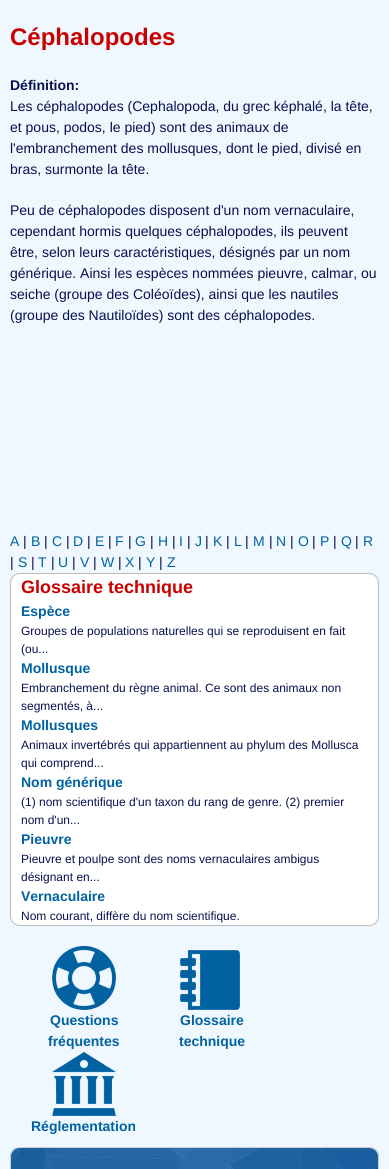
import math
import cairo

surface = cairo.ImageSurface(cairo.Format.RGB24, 389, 1169)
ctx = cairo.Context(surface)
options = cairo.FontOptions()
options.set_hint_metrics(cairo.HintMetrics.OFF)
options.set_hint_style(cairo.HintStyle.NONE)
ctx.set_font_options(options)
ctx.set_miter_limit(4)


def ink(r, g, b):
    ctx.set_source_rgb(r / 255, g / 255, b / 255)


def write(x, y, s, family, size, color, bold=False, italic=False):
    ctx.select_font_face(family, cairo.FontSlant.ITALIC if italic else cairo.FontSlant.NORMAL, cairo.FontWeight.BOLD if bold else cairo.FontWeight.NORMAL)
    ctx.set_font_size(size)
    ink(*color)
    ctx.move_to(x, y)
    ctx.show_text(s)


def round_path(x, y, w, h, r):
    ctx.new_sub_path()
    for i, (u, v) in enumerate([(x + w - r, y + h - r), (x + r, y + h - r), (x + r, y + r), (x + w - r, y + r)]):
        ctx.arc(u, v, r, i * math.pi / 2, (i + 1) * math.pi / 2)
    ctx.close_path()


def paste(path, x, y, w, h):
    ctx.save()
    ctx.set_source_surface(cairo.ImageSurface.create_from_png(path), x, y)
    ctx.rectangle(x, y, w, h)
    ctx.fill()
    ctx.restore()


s1 = dict(family="Liberation Sans", size=24, color=(200, 0, 0), bold=True)
s2 = dict(family="Liberation Sans", size=14, color=(7, 16, 79), bold=True)
s3 = dict(family="Liberation Sans", size=14, color=(7, 16, 79))
s4 = dict(family="Liberation Sans", size=14, color=(0, 98, 160))
s5 = dict(family="Liberation Sans", size=18, color=(200, 0, 0), bold=True)
s6 = dict(family="Liberation Sans", size=14, color=(0, 98, 160), bold=True)
s7 = dict(family="Liberation Sans", size=12, color=(7, 16, 79))

ink(240, 248, 255)
ctx.paint()
write(10, 45, "Céphalopodes", **s1)
write(10, 90, "Définition:", **s2)
write(10, 111, "Les céphalopodes (Cephalopoda, du grec képhalé, la tête,", **s3)
write(10, 132, "et pous, podos, le pied) sont des animaux de", **s3)
write(10, 153, "l'embranchement des mollusques, dont le pied, divisé en", **s3)
write(10, 174, "bras, surmonte la tête.", **s3)
write(10, 215, "Peu de céphalopodes disposent d'un nom vernaculaire,", **s3)
write(10, 236, "cependant hormis quelques céphalopodes, ils peuvent", **s3)
write(10, 257, "être, selon leurs caractéristiques, désignés par un nom", **s3)
write(10, 278, "générique. Ainsi les espèces nommées pieuvre, calmar, ou", **s3)
write(10, 299, "seiche (groupe des Coléoïdes), ainsi que les nautiles", **s3)
write(10, 320, "(groupe des Nautiloïdes) sont des céphalopodes.", **s3)
write(10, 546, "A", **s4)
write(23, 546, "|", **s3)
write(31, 546, "B", **s4)
write(44, 546, "|", **s3)
write(52, 546, "C", **s4)
write(66, 546, "|", **s3)
write(73, 546, "D", **s4)
write(87, 546, "|", **s3)
write(95, 546, "E", **s4)
write(108, 546, "|", **s3)
write(115, 546, "F", **s4)
write(128, 546, "|", **s3)
write(135, 546, "G", **s4)
write(150, 546, "|", **s3)
write(158, 546, "H", **s4)
write(172, 546, "|", **s3)
write(179, 546, "I", **s4)
write(187, 546, "|", **s3)
write(195, 546, "J", **s4)
write(205, 546, "|", **s3)
write(213, 546, "K", **s4)
write(226, 546, "|", **s3)
write(234, 546, "L", **s4)
write(245, 546, "|", **s3)
write(253, 546, "M", **s4)
write(269, 546, "|", **s3)
write(276, 546, "N", **s4)
write(290, 546, "|", **s3)
write(298, 546, "O", **s4)
write(312, 546, "|", **s3)
write(320, 546, "P", **s4)
write(333, 546, "|", **s3)
write(341, 546, "Q", **s4)
write(355, 546, "|", **s3)
write(363, 546, "R", **s4)
write(10, 567, "|", **s3)
write(18, 567, "S", **s4)
write(31, 567, "|", **s3)
write(38, 567, "T", **s4)
write(51, 567, "|", **s3)
write(58, 567, "U", **s4)
write(72, 567, "|", **s3)
write(80, 567, "V", **s4)
write(93, 567, "|", **s3)
write(101, 567, "W", **s4)
write(118, 567, "|", **s3)
write(125, 567, "X", **s4)
write(138, 567, "|", **s3)
write(146, 567, "Y", **s4)
write(159, 567, "|", **s3)
write(167, 567, "Z", **s4)
ink(255, 255, 255)
round_path(10.5, 573.5, 368, 352, 9.5)
ctx.fill_preserve()
ink(187, 187, 187)
ctx.set_line_width(1)
ctx.stroke()
write(21, 593, "Glossaire technique", **s5)
write(21, 616, "Espèce", **s6)
write(21, 635, "Groupes de populations naturelles qui se reproduisent en fait", **s7)
write(21, 653, "(ou...", **s7)
write(21, 673, "Mollusque", **s6)
write(21, 692, "Embranchement du règne animal. Ce sont des animaux non", **s7)
write(21, 710, "segmentés, à...", **s7)
write(21, 730, "Mollusques", **s6)
write(21, 749, "Animaux invertébrés qui appartiennent au phylum des Mollusca", **s7)
write(21, 767, "qui comprend...", **s7)
write(21, 787, "Nom générique", **s6)
write(21, 806, "(1) nom scientifique d'un taxon du rang de genre. (2) premier", **s7)
write(21, 824, "nom d'un...", **s7)
write(21, 844, "Pieuvre", **s6)
write(21, 863, "Pieuvre et poulpe sont des noms vernaculaires ambigus", **s7)
write(21, 881, "désignant en...", **s7)
write(21, 901, "Vernaculaire", **s6)
write(21, 920, "Nom courant, diffère du nom scientifique.", **s7)
paste("pic1.png", 52, 946, 64, 64)
write(50, 1025, "Questions", **s6)
write(48, 1046, "fréquentes", **s6)
paste("pic2.png", 180, 950, 60, 60)
write(180, 1025, "Glossaire", **s6)
write(179, 1046, "technique", **s6)
paste("pic3.png", 52, 1052, 64, 64)
write(31, 1131, "Réglementation", **s6)
paste("pic4.png", 10, 1148, 369, 21)
round_path(10.5, 1147.5, 368, 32, 9.5)
ink(204, 204, 204)
ctx.stroke()
surface.write_to_png("screenshot.png")
